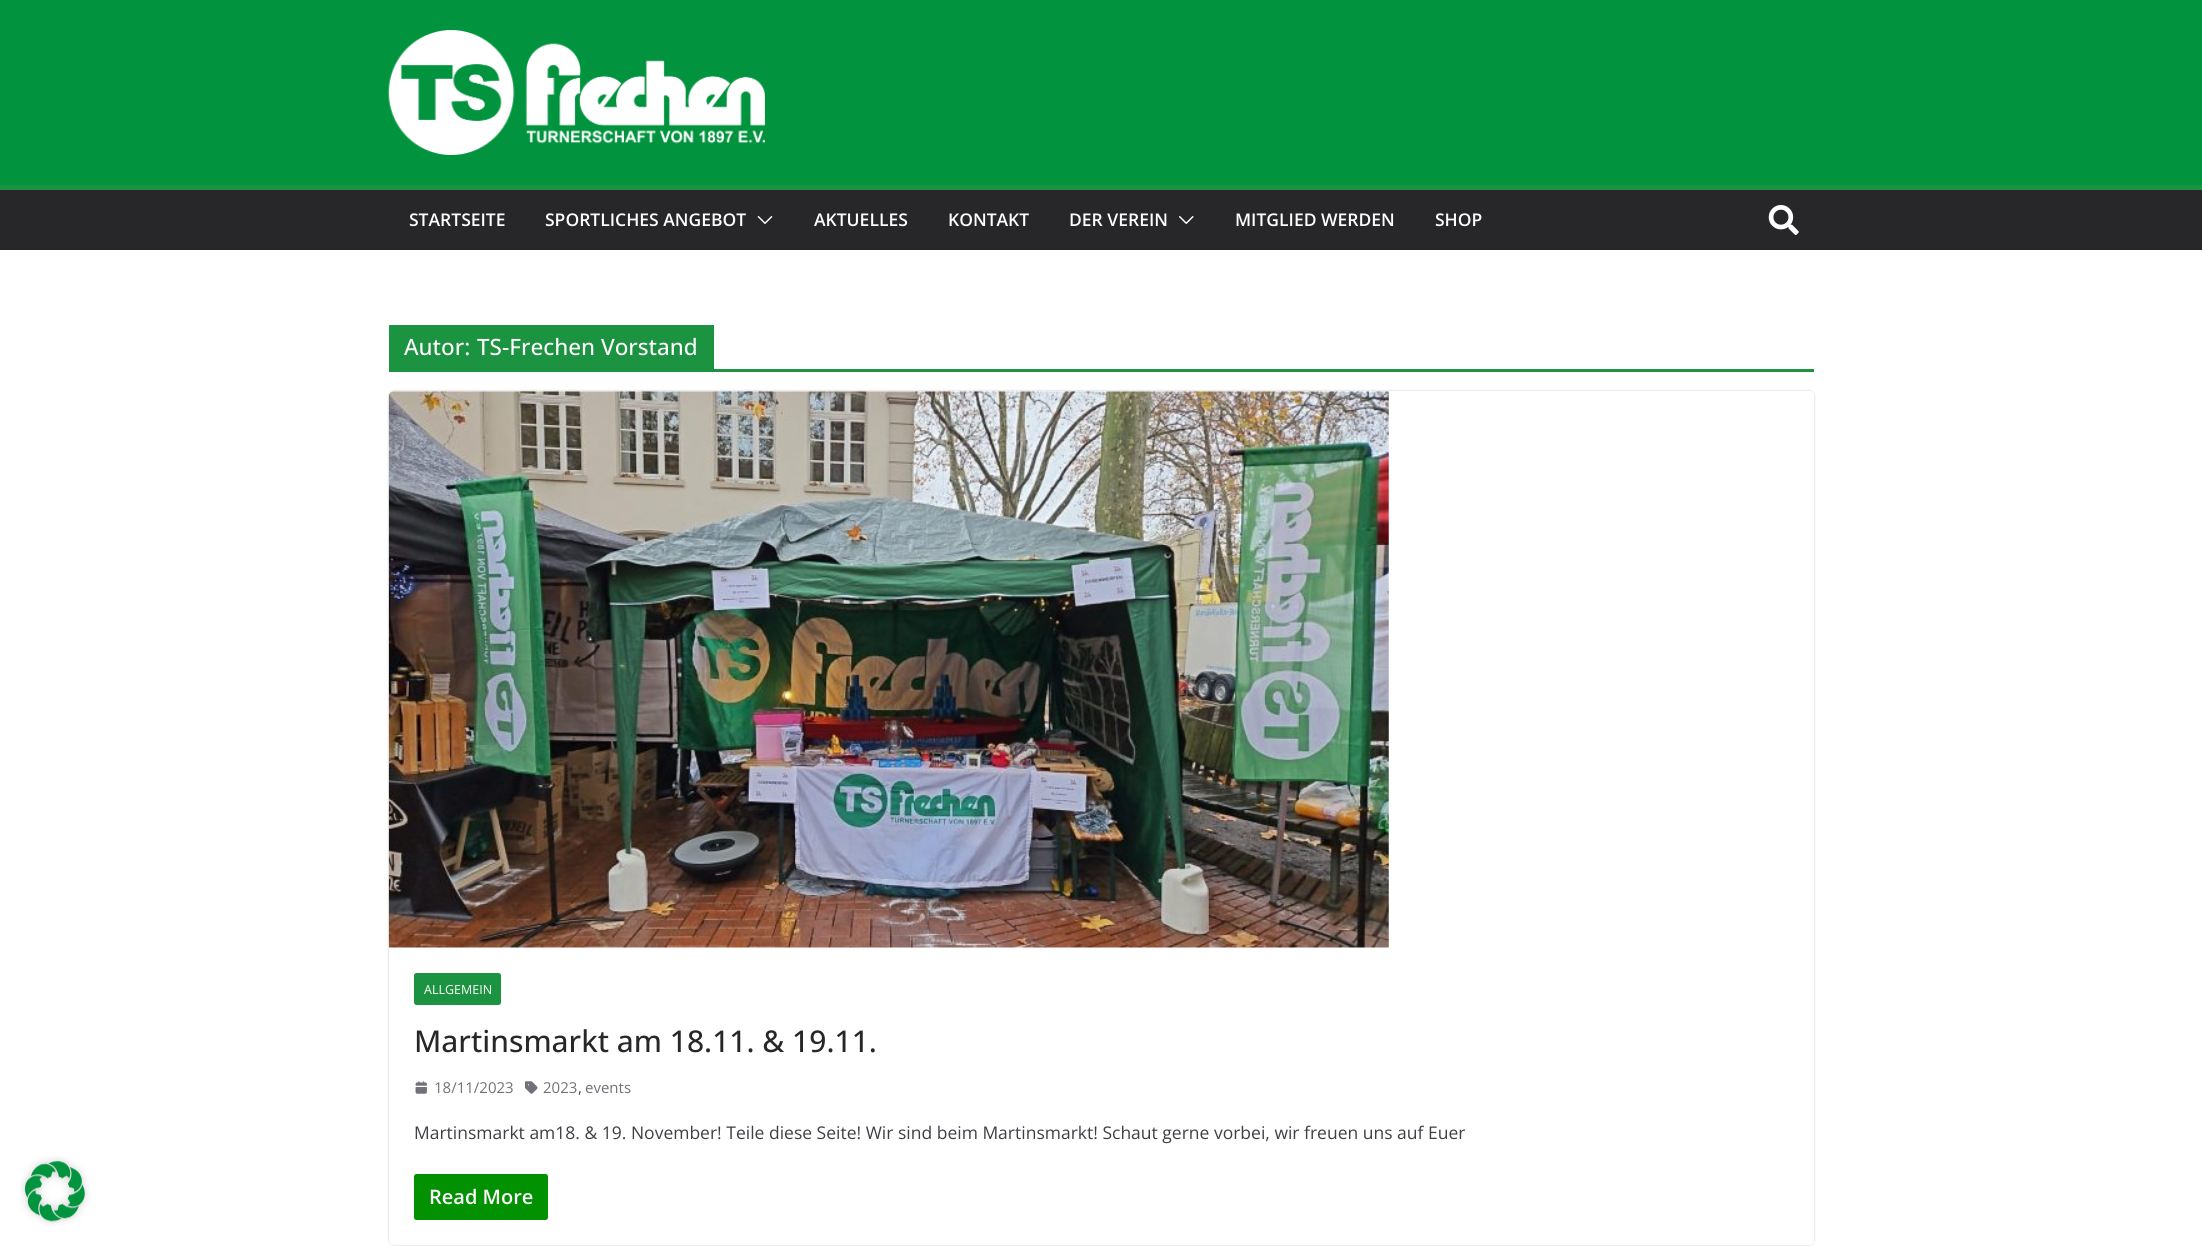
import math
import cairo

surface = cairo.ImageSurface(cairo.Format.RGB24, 2202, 1246)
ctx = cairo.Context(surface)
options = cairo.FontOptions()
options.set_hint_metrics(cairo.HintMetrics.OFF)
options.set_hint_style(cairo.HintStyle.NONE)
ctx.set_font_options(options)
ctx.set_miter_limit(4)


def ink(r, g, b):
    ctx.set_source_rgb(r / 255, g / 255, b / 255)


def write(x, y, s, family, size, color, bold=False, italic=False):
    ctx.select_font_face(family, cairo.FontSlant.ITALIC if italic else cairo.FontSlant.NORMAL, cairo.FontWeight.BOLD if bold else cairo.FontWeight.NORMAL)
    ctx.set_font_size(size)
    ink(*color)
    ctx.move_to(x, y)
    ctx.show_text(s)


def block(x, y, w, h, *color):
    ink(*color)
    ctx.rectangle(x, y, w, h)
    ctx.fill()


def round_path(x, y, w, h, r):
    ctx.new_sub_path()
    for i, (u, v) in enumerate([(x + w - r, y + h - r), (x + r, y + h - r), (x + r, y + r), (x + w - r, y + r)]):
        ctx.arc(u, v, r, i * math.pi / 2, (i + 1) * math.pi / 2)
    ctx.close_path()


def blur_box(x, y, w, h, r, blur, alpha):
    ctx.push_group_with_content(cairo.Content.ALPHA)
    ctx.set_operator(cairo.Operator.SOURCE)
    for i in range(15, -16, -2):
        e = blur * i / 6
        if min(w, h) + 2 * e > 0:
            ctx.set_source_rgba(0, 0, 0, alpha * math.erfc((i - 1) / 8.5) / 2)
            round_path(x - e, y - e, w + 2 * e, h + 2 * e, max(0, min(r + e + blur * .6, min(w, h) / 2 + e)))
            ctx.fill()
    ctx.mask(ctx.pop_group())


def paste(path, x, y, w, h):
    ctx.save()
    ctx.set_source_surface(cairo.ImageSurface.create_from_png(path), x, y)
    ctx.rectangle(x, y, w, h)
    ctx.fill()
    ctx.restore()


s1 = dict(family="Open Sans SemiBold", size=17.5, color=(255, 255, 255))
s2 = dict(family="Open Sans Medium", size=22.5, color=(255, 255, 255))
s3 = dict(family="Open Sans", size=12.5, color=(255, 255, 255))
s4 = dict(family="Open Sans Medium", size=30, color=(39, 39, 42))
s5 = dict(family="Open Sans", size=15, color=(113, 113, 122))
s6 = dict(family="Open Sans", size=15, color=(63, 63, 70))
s7 = dict(family="Open Sans", size=17.5, color=(63, 63, 70))
s8 = dict(family="Open Sans SemiBold", size=20, color=(255, 255, 255))

ink(255, 255, 255)
ctx.paint()
paste("pic1.png", 20, 1156, 70, 70)
block(0, 0, 2202, 185, 1, 147, 62)
paste("pic2.png", 388, 30, 377, 125)
block(0, 190, 2202, 60, 39, 39, 42)
block(0, 185, 2202, 5, 28, 147, 64)
write(409, 226, "STARTSEITE", **s1)
write(545, 226, "SPORTLICHES ANGEBOT", **s1)
paste("pic3.png", 757, 216, 16, 8)
write(814, 226, "AKTUELLES", **s1)
write(948, 226, "KONTAKT", **s1)
write(1069, 226, "DER VEREIN", **s1)
paste("pic4.png", 1179, 216, 15, 8)
write(1235, 226, "MITGLIED WERDEN", **s1)
write(1435, 226, "SHOP", **s1)
paste("pic5.png", 1768, 205, 31, 30)
block(389, 369, 1425, 3, 28, 147, 64)
block(389, 325, 325, 44, 28, 147, 64)
write(404, 355, "Autor:", **s2)
write(477, 355, "TS-Frechen Vorstand", **s2)
ctx.save()
ctx.set_fill_rule(cairo.FillRule.EVEN_ODD)
ctx.new_path()
ctx.move_to(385, 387)
ctx.line_to(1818, 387)
ctx.line_to(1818, 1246)
ctx.line_to(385, 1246)
ctx.close_path()
ctx.move_to(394, 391)
ctx.line_to(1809, 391)
ctx.curve_to(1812, 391, 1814, 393, 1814, 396)
ctx.line_to(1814, 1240)
ctx.curve_to(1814, 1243, 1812, 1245, 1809, 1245)
ctx.line_to(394, 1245)
ctx.curve_to(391, 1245, 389, 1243, 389, 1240)
ctx.line_to(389, 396)
ctx.curve_to(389, 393, 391, 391, 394, 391)
ctx.close_path()
ctx.clip()
ink(0, 0, 0)
blur_box(389, 391, 1425, 854, 5, 1, 0.24)
ctx.restore()
paste("pic6.png", 388, 391, 1001, 557)
ink(28, 147, 64)
round_path(414, 973, 87, 32, 2.5)
ctx.fill()
write(424, 994, "ALLGEMEIN", **s3)
write(414, 1052, "Martinsmarkt am 18.11. & 19.11.", **s4)
paste("pic7.png", 415, 1081, 12, 13)
write(434, 1093, "18/11/2023", **s5)
paste("pic8.png", 525, 1081, 13, 13)
write(543, 1093, "2023", **s5)
write(578, 1093, ",", **s6)
write(585, 1093, "events", **s5)
write(414, 1139, "Martinsmarkt am18. & 19. November! Teile diese Seite! Wir sind beim Martinsmarkt! Schaut gerne vorbei, wir freuen uns auf Euer", **s7)
ink(2, 145, 0)
round_path(414, 1174, 134, 46, 2.5)
ctx.fill()
write(429, 1204, "Read More", **s8)
surface.write_to_png("screenshot.png")
